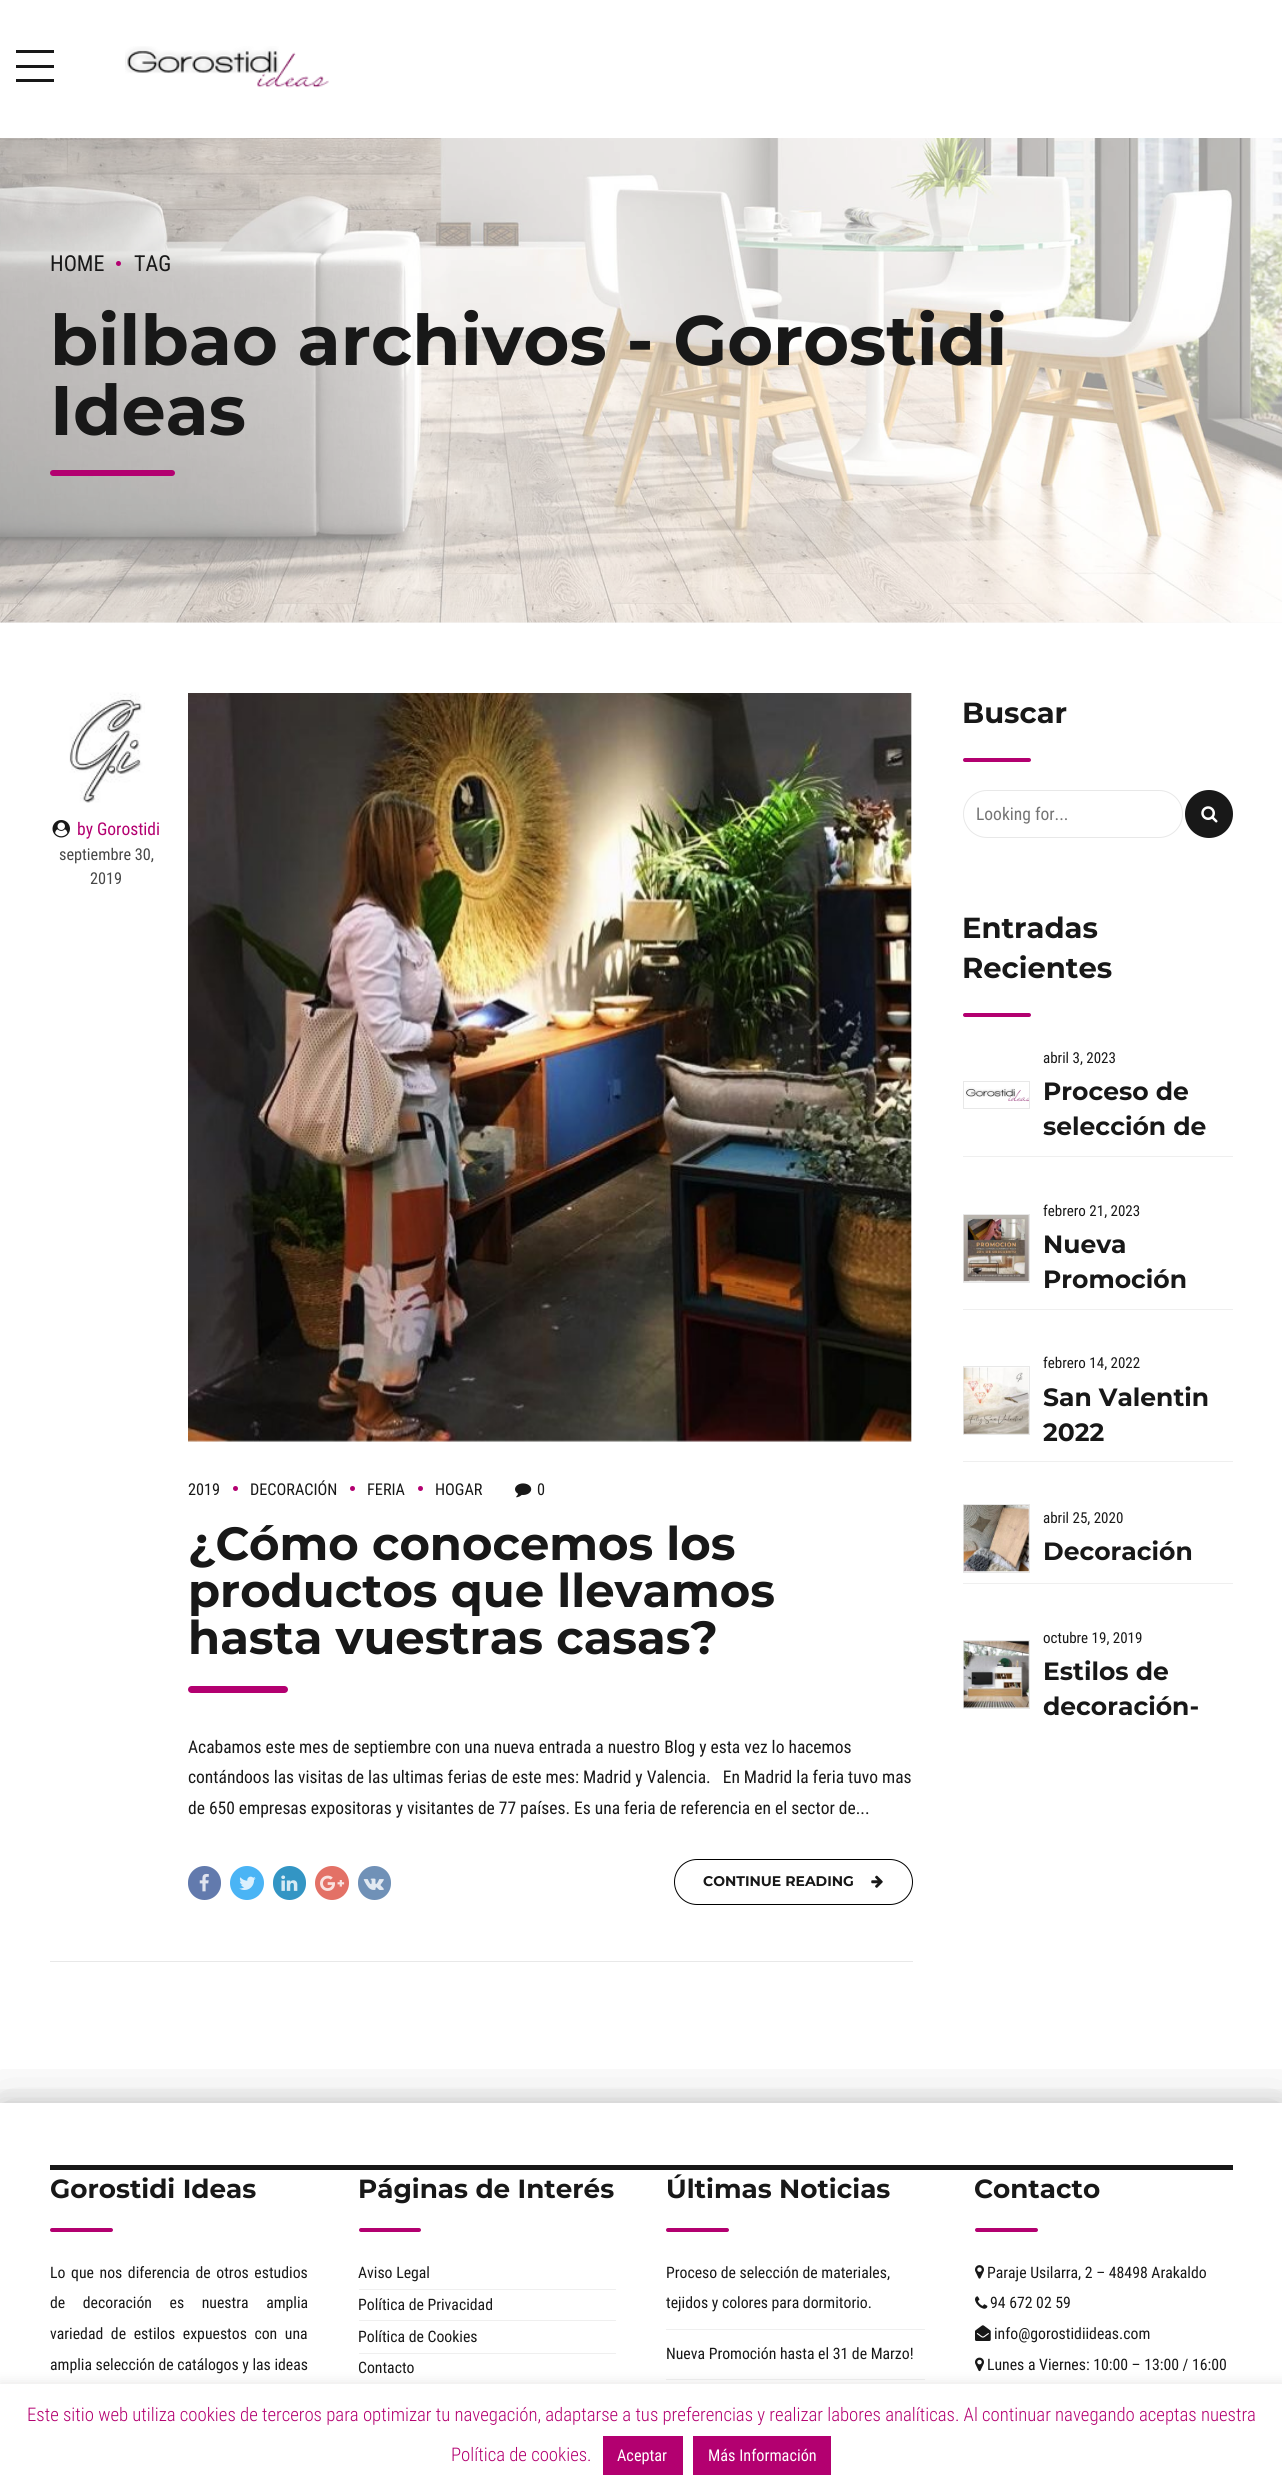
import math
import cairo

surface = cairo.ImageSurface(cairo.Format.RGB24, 1282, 2490)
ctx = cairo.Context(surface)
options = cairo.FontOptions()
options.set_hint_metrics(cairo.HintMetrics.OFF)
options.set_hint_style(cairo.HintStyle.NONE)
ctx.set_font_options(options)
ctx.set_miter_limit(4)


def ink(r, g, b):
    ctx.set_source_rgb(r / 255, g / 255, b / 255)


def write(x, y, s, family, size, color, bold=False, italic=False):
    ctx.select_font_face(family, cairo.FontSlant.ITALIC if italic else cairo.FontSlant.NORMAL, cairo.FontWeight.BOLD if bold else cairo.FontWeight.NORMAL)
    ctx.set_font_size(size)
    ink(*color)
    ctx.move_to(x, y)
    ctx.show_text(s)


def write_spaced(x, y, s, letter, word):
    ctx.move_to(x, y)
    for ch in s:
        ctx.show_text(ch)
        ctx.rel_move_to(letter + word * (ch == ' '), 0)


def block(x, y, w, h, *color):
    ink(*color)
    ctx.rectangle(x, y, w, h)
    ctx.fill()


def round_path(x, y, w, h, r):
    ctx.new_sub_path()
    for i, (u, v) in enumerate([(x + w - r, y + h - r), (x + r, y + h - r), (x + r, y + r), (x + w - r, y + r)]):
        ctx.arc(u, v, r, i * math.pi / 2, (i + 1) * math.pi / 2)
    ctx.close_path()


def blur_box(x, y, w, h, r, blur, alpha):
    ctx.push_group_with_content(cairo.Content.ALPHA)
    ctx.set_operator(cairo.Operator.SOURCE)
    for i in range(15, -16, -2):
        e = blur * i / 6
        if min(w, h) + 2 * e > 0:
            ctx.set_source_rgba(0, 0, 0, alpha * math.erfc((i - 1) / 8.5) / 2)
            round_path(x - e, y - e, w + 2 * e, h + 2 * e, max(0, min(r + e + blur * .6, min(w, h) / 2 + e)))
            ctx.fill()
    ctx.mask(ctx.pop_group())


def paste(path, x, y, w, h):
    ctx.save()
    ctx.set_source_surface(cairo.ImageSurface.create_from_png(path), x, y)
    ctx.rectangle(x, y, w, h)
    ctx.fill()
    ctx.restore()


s1 = dict(family="Roboto Condensed", size=22, color=(24, 24, 24))
s2 = dict(family="Montserrat", size=70, color=(24, 24, 24), bold=True)
s3 = dict(family="Roboto Condensed", size=17.5, color=(179, 0, 112))
s4 = dict(family="Roboto Condensed", size=16.25, color=(70, 70, 70))
s5 = dict(family="Roboto Condensed", size=16.25, color=(24, 24, 24))
s6 = dict(family="Montserrat", size=46.5, color=(24, 24, 24), bold=True)
s7 = dict(family="Roboto Condensed", size=17.5, color=(24, 24, 24))
s8 = dict(family="Montserrat", size=14, color=(24, 24, 24), bold=True)
s9 = dict(family="Montserrat", size=29, color=(24, 24, 24), bold=True)
s10 = dict(family="Roboto Condensed", size=17.5, color=(117, 117, 117))
s11 = dict(family="Roboto Condensed", size=15, color=(24, 24, 24))
s12 = dict(family="Montserrat", size=25, color=(24, 24, 24), bold=True)
s13 = dict(family="Montserrat", size=26.25, color=(24, 24, 24), bold=True)
s14 = dict(family="Roboto Condensed", size=15.75, color=(24, 24, 24))
s15 = dict(family="Roboto Condensed Light", size=18.75, color=(179, 0, 112))
s16 = dict(family="Roboto Condensed", size=16.25, color=(255, 255, 255))

ink(255, 255, 255)
ctx.paint()
block(16, 50, 38, 3, 24, 24, 24)
block(16, 65, 38, 3, 24, 24, 24)
block(16, 79, 38, 3, 24, 24, 24)
paste("pic1.png", 125, 46, 204, 42)
block(0, 622, 1282, 1, 248, 248, 248)
paste("pic2.png", 0, 138, 1282, 485)
write(50, 271, "HOME", **s1)
ink(179, 0, 112)
ctx.new_path()
ctx.arc(118.5, 263.5, 2.5, 0, 2 * math.pi)
ctx.fill()
write(134, 271, "TAG", **s1)
write(50, 365, "bilbao archivos - Gorostidi", **s2)
write(50, 435, "Ideas", **s2)
ink(179, 0, 112)
round_path(50, 470, 125, 6, 3)
ctx.fill()
block(50, 1961, 863, 1, 232, 232, 232)
paste("pic3.png", 69, 692, 76, 111)
paste("pic4.png", 52, 820, 18, 18)
write(77, 835, "by Gorostidi", **s3)
write(59, 860, "septiembre 30,", **s4)
write(90, 884, "2019", **s4)
paste("pic5.png", 188, 693, 724, 749)
write(188, 1495, "2019", **s5)
ink(179, 0, 112)
ctx.new_path()
ctx.arc(235.5, 1488.5, 2.5, 0, 2 * math.pi)
ctx.fill()
write(250, 1495, "DECORACIÓN", **s5)
ink(179, 0, 112)
ctx.new_path()
ctx.arc(352.5, 1488.5, 2.5, 0, 2 * math.pi)
ctx.fill()
write(367, 1495, "FERIA", **s5)
ink(179, 0, 112)
ctx.new_path()
ctx.arc(420.5, 1488.5, 2.5, 0, 2 * math.pi)
ctx.fill()
write(435, 1495, "HOGAR", **s5)
paste("pic6.png", 515, 1483, 17, 15)
write(537, 1495, "0", **s5)
write(188, 1560, "¿Cómo conocemos los", **s6)
write(188, 1607, "productos que llevamos", **s6)
write(188, 1654, "hasta vuestras casas?", **s6)
ink(179, 0, 112)
round_path(188, 1686, 100, 7, 3.5)
ctx.fill()
write(188, 1753, "Acabamos este mes de septiembre con una nueva entrada a nuestro Blog y esta vez lo hacemos", **s7)
write(188, 1783, "contándoos las visitas de las ultimas ferias de este mes: Madrid y Valencia.   En Madrid la feria tuvo mas", **s7)
write(188, 1814, "de 650 empresas expositoras y visitantes de 77 países. Es una feria de referencia en el sector de...", **s7)
ink(98, 122, 173)
round_path(188, 1866, 33, 34, 16.5)
ctx.fill()
paste("pic7.png", 199, 1873, 10, 19)
ink(74, 180, 245)
ctx.arc(247, 1883, 17, 0, 2 * math.pi)
ctx.fill()
paste("pic8.png", 239, 1876, 17, 14)
ink(51, 149, 196)
round_path(273, 1866, 33, 34, 16.5)
ctx.fill()
paste("pic9.png", 281, 1875, 17, 16)
ink(227, 113, 102)
ctx.arc(332, 1883, 17, 0, 2 * math.pi)
ctx.fill()
paste("pic10.png", 320, 1875, 25, 16)
ink(112, 145, 183)
round_path(358, 1866, 33, 34, 16.5)
ctx.fill()
paste("pic11.png", 363, 1878, 21, 12)
round_path(674.5, 1859.5, 238, 45, 22.5)
ink(0, 0, 0)
ctx.set_line_width(1)
ctx.stroke()
write(703, 1886, "CONTINUE READING", **s8)
paste("pic12.png", 871, 1875, 12, 13)
write(962, 723, "Buscar", **s9)
ink(179, 0, 112)
round_path(963, 758, 68, 4, 2)
ctx.fill()
round_path(963.5, 790.5, 219, 47, 23.5)
ink(232, 232, 232)
ctx.stroke()
write(976, 820, "Looking for...", **s10)
ink(24, 24, 24)
ctx.new_path()
ctx.arc(1209, 814, 24, 0, 2 * math.pi)
ctx.fill()
paste("pic13.png", 1201, 806, 17, 17)
write(962, 938, "Entradas", **s9)
write(962, 978, "Recientes", **s9)
ink(179, 0, 112)
round_path(963, 1013, 68, 4, 2)
ctx.fill()
block(963, 1156, 270, 1, 239, 239, 239)
ctx.rectangle(963.5, 1081.5, 66, 27)
ink(232, 232, 232)
ctx.stroke()
paste("pic14.png", 965, 1087, 64, 15)
write(1043, 1063, "abril 3, 2023", **s11)
write(1043, 1100, "Proceso de", **s12)
write(1043, 1135, "selección de", **s12)
block(963, 1309, 270, 1, 239, 239, 239)
ctx.rectangle(963.5, 1214.5, 66, 68)
ink(232, 232, 232)
ctx.stroke()
paste("pic15.png", 963, 1215, 66, 67)
write(1043, 1216, "febrero 21, 2023", **s11)
write(1043, 1253, "Nueva", **s12)
write(1043, 1288, "Promoción", **s12)
block(963, 1461, 270, 1, 239, 239, 239)
ctx.rectangle(963.5, 1366.5, 66, 68)
ink(232, 232, 232)
ctx.stroke()
paste("pic16.png", 963, 1367, 66, 67)
write(1043, 1368, "febrero 14, 2022", **s11)
write(1043, 1406, "San Valentin", **s12)
write(1043, 1441, "2022", **s12)
block(963, 1583, 270, 1, 239, 239, 239)
ctx.rectangle(963.5, 1504.5, 66, 68)
ink(232, 232, 232)
ctx.stroke()
paste("pic17.png", 963, 1505, 66, 67)
write(1043, 1523, "abril 25, 2020", **s11)
write(1043, 1560, "Decoración", **s12)
ctx.rectangle(963.5, 1640.5, 66, 68)
ink(232, 232, 232)
ctx.stroke()
paste("pic18.png", 963, 1641, 66, 67)
write(1043, 1643, "octubre 19, 2019", **s11)
write(1043, 1680, "Estilos de", **s12)
write(1043, 1715, "decoración-", **s12)
ctx.save()
ctx.rectangle(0, 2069, 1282, 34)
ctx.clip()
ink(0, 0, 0)
blur_box(0, 2103, 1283, 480, 0, 31, 0.15)
ctx.restore()
ctx.save()
ctx.rectangle(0, 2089, 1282, 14)
ctx.clip()
ink(0, 0, 0)
blur_box(0, 2103, 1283, 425, 0, 12.5, 0.15)
ctx.restore()
block(50, 2165, 1183, 5, 24, 24, 24)
write(50, 2198, "Gorostidi Ideas", **s13)
ink(179, 0, 112)
round_path(50, 2228, 63, 4, 2)
ctx.fill()
ctx.select_font_face("Roboto Condensed")
ctx.set_font_size(15.75)
ink(24, 24, 24)
write_spaced(50, 2278, "Lo que nos diferencia de otros estudios", 0, 2)
write_spaced(50, 2308, "de decoración es nuestra amplia", 0, 14)
write_spaced(50, 2339, "variedad de estilos expuestos con una", 0, 4)
write(50, 2370, "amplia selección de catálogos y las ideas", **s14)
write(358, 2198, "Páginas de Interés", **s13)
ink(179, 0, 112)
round_path(359, 2228, 62, 4, 2)
ctx.fill()
block(359, 2289, 257, 1, 239, 239, 239)
write(358, 2278, "Aviso Legal", **s14)
block(359, 2320, 257, 1, 239, 239, 239)
write(358, 2310, "Política de Privacidad", **s14)
block(359, 2353, 257, 1, 239, 239, 239)
write(358, 2342, "Política de Cookies", **s14)
write(358, 2373, "Contacto", **s14)
write(666, 2198, "Últimas Noticias", **s13)
ink(179, 0, 112)
round_path(666, 2228, 63, 4, 2)
ctx.fill()
block(666, 2329, 259, 1, 239, 239, 239)
write(666, 2278, "Proceso de selección de materiales,", **s14)
write(666, 2308, "tejidos y colores para dormitorio.", **s14)
block(666, 2379, 259, 1, 239, 239, 239)
write(666, 2359, "Nueva Promoción hasta el 31 de Marzo!", **s14)
write(974, 2198, "Contacto", **s13)
ink(179, 0, 112)
round_path(975, 2228, 63, 4, 2)
ctx.fill()
paste("pic19.png", 975, 2265, 9, 14)
write(987, 2278, "Paraje Usilarra, 2 – 48498 Arakaldo", **s14)
paste("pic20.png", 975, 2296, 13, 13)
write(990, 2308, "94 672 02 59", **s14)
paste("pic21.png", 975, 2325, 16, 16)
write(994, 2339, "info@gorostidiideas.com", **s14)
paste("pic22.png", 975, 2357, 9, 15)
write(987, 2370, "Lunes a Viernes: 10:00 – 13:00 / 16:00", **s14)
ink(172, 171, 171)
blur_box(0, 2383, 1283, 106, 0, 6, 0.3)
block(0, 2384, 1282, 106, 255, 255, 255)
write(27, 2421, "Este sitio web utiliza cookies de terceros para optimizar tu navegación, adaptarse a tus preferencias y realizar labores analíticas. Al continuar navegando aceptas nuestra", **s15)
write(451, 2461, "Política de cookies.", **s15)
block(603, 2436, 80, 39, 179, 0, 112)
write(617, 2461, "Aceptar", **s16)
block(693, 2436, 138, 39, 179, 0, 112)
write(708, 2461, "Más Información", **s16)
surface.write_to_png("screenshot.png")
